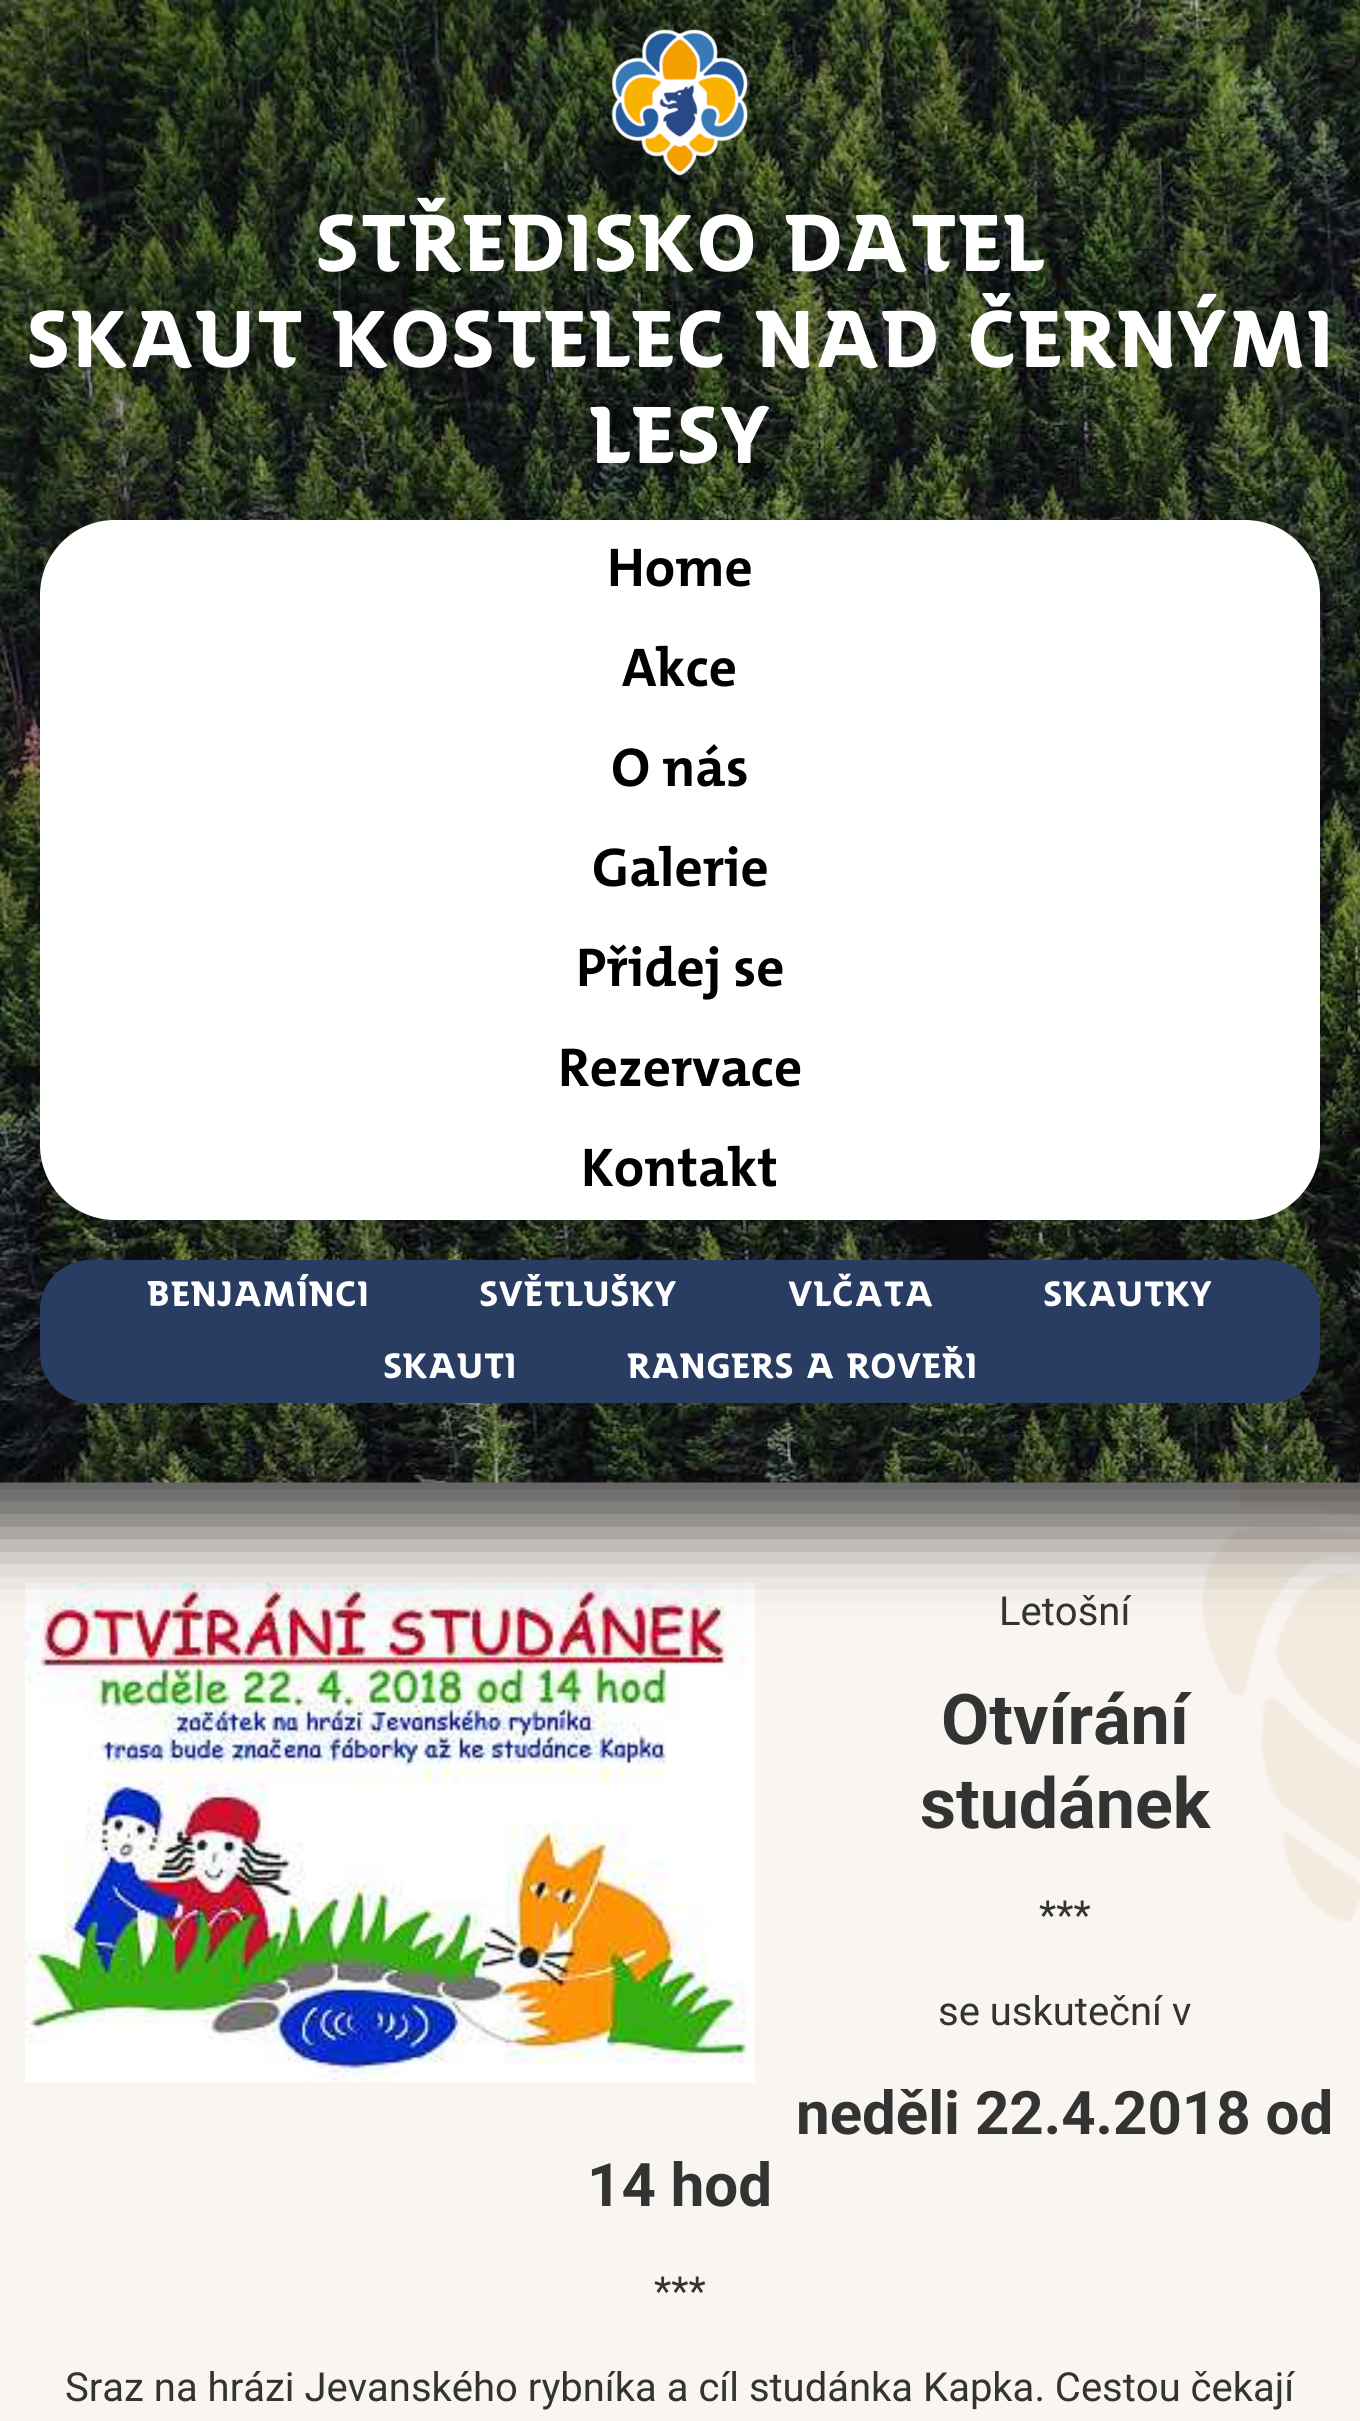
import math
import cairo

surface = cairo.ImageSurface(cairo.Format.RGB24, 1360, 2421)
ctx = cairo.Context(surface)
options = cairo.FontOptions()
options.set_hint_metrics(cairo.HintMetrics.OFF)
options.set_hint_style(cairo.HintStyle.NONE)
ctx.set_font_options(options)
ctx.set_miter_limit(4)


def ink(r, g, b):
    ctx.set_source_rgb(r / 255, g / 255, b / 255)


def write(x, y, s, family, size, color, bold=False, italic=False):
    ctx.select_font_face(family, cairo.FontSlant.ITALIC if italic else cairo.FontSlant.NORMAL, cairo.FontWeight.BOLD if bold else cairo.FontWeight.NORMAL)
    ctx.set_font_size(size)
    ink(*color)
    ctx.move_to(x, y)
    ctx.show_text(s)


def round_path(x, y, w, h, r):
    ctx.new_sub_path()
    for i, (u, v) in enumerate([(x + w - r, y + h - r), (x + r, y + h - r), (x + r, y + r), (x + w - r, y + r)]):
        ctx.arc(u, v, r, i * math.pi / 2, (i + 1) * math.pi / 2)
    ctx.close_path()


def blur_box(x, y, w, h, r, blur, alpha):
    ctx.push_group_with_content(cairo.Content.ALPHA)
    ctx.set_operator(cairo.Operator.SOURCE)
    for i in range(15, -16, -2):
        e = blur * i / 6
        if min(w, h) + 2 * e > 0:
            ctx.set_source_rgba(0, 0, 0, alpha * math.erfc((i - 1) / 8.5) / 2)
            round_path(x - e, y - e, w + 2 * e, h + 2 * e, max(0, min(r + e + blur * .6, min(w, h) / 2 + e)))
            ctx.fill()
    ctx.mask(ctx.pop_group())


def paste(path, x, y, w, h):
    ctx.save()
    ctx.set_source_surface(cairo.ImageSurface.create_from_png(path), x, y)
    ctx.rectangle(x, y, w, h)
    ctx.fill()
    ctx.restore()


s1 = dict(family="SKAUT", size=80, color=(255, 255, 255), bold=True)
s2 = dict(family="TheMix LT", size=55, color=(0, 0, 0), bold=True)
s3 = dict(family="SKAUT", size=35, color=(255, 255, 255), bold=True)
s4 = dict(family="Roboto", size=40, color=(51, 51, 51))
s5 = dict(family="Roboto", size=70, color=(51, 51, 51), bold=True)
s6 = dict(family="Roboto", size=60, color=(51, 51, 51), bold=True)

ink(255, 255, 255)
ctx.paint()
paste("pic1.png", 0, 1482, 1360, 939)
paste("pic4.png", 25, 1582, 730, 501)
ink(0, 0, 0)
blur_box(-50, -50, 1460, 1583, 0, 37.5, 0.64)
paste("pic2.png", 0, 0, 1360, 1483)
paste("pic3.png", 611, 29, 137, 147)
write(315, 271, "STŘEDISKO DATEL", **s1)
write(26, 367, "Skaut Kostelec nad Černými", **s1)
write(589, 463, "Lesy", **s1)
round_path(40, 520, 1280, 700, 75)
ctx.fill()
write(607, 586, "Home", **s2)
write(622, 686, "Akce", **s2)
write(611, 786, "O nás", **s2)
write(592, 886, "Galerie", **s2)
write(576, 986, "Přidej se", **s2)
write(558, 1086, "Rezervace", **s2)
write(581, 1186, "Kontakt", **s2)
ink(41, 60, 98)
round_path(40, 1260, 1280, 143, 50)
ctx.fill()
write(147, 1306, "Benjamínci", **s3)
write(479, 1306, "Světlušky", **s3)
write(788, 1306, "Vlčata", **s3)
write(1043, 1306, "Skautky", **s3)
write(383, 1378, "Skauti", **s3)
write(627, 1378, "Rangers a Roveři", **s3)
write(999, 1625, "Letošní", **s4)
write(941, 1744, "Otvírání", **s5)
write(920, 1828, "studánek", **s5)
write(1039, 1929, "***", **s4)
write(938, 2025, "se uskuteční v", **s4)
write(796, 2134, "neděli 22.4.2018 od", **s6)
write(587, 2206, "14 hod", **s6)
write(654, 2305, "***", **s4)
write(65, 2401, "Sraz na hrázi Jevanského rybníka a cíl studánka Kapka. Cestou čekají", **s4)
surface.write_to_png("screenshot.png")
